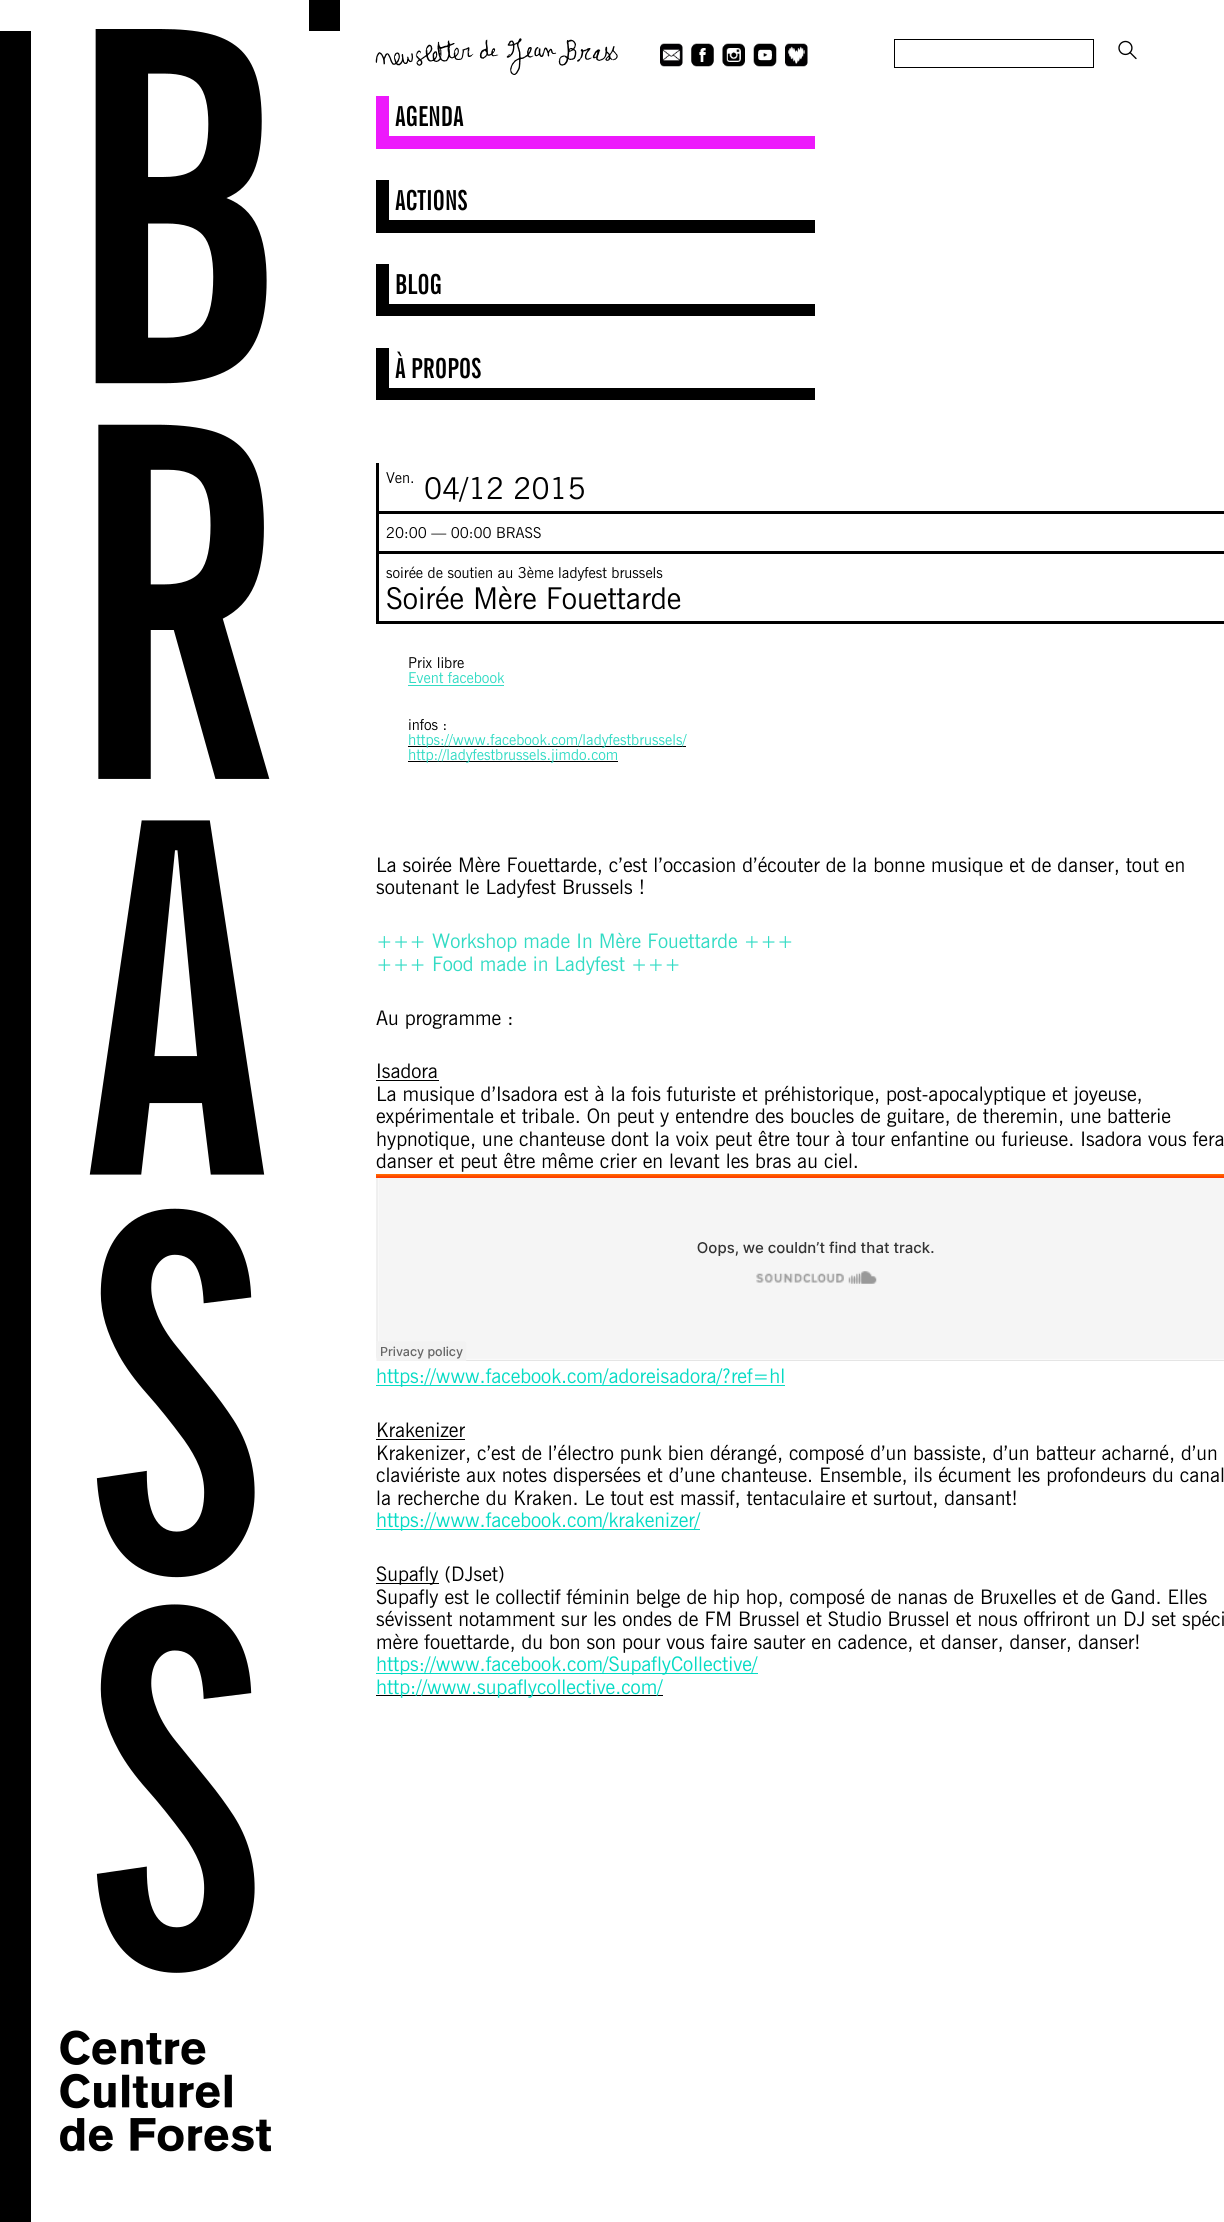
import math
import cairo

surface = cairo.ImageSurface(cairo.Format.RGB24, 1224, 2222)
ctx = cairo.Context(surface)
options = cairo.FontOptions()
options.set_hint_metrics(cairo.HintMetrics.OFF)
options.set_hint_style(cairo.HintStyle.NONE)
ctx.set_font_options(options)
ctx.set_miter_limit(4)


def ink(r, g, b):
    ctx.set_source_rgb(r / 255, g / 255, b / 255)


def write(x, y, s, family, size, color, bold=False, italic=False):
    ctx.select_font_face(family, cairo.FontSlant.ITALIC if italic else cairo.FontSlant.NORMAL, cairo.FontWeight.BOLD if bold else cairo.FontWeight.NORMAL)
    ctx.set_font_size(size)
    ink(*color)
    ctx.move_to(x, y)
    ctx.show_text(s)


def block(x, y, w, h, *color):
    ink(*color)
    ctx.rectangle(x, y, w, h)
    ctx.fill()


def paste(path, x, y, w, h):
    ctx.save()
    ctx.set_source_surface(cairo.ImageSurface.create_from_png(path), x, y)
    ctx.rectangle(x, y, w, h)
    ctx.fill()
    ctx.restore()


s1 = dict(family="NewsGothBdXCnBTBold", size=27.5, color=(0, 0, 0), bold=True)
s2 = dict(family="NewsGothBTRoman", size=15, color=(0, 0, 0))
s3 = dict(family="NewsGothBTRoman", size=30, color=(0, 0, 0))
s4 = dict(family="NewsGothBTRoman", size=15, color=(50, 219, 196))
s5 = dict(family="NewsGothBTRoman", size=20, color=(0, 0, 0))
s6 = dict(family="NewsGothBTRoman", size=20, color=(50, 219, 196))
s7 = dict(family="NewsGothBTRoman", size=20, color=(5, 219, 196))

ink(255, 255, 255)
ctx.paint()
block(0, 31, 31, 2191, 0, 0, 0)
block(309, 0, 31, 31, 0, 0, 0)
paste("pic1.png", 60, 29, 211, 2123)
paste("pic2.png", 375, 38, 243, 37)
paste("pic3.png", 660, 43, 23, 24)
paste("pic4.png", 691, 43, 23, 24)
paste("pic5.png", 722, 43, 23, 24)
paste("pic6.png", 753, 43, 24, 24)
paste("pic7.png", 785, 43, 23, 24)
ctx.rectangle(894.5, 39.5, 199, 28)
ctx.set_line_width(1)
ctx.stroke()
paste("pic8.png", 1118, 40, 19, 20)
block(389, 136, 426, 13, 237, 25, 252)
block(376, 96, 13, 53, 237, 25, 252)
write(395, 126, "AGENDA", **s1)
block(389, 220, 426, 13, 0, 0, 0)
block(376, 180, 13, 53, 0, 0, 0)
write(395, 210, "ACTIONS", **s1)
block(389, 304, 426, 12, 0, 0, 0)
block(376, 264, 13, 52, 0, 0, 0)
write(395, 294, "BLOG", **s1)
block(389, 388, 426, 12, 0, 0, 0)
block(376, 348, 13, 52, 0, 0, 0)
write(395, 378, "À PROPOS", **s1)
block(376, 463, 3, 161, 0, 0, 0)
block(379, 511, 845, 3, 0, 0, 0)
write(386, 483, "Ven.", **s2)
write(424, 499, "04/12 2015", **s3)
block(379, 551, 845, 3, 0, 0, 0)
write(386, 538, "20:00 — 00:00 BRASS", **s2)
block(379, 621, 845, 3, 0, 0, 0)
write(386, 578, "soirée de soutien au 3ème ladyfest brussels", **s2)
write(386, 609, "Soirée Mère Fouettarde", **s3)
write(408, 668, "Prix libre", **s2)
write(408, 683, "Event facebook", **s4)
block(408, 685, 96, 1, 50, 219, 196)
write(408, 730, "infos :", **s2)
block(408, 746, 278, 1, 0, 0, 0)
write(408, 745, "https://www.facebook.com/ladyfestbrussels/", **s4)
block(408, 761, 210, 1, 0, 0, 0)
write(408, 760, "http://ladyfestbrussels.jimdo.com", **s4)
write(376, 872, "La soirée Mère Fouettarde, c’est l’occasion d’écouter de la bonne musique et de danser, tout en", **s5)
write(376, 894, "soutenant le Ladyfest Brussels !", **s5)
write(376, 948, "+++ Workshop made In Mère Fouettarde +++", **s6)
write(376, 971, "+++ Food made in Ladyfest +++", **s6)
write(376, 1025, "Au programme :", **s5)
write(376, 1078, "Isadora", **s5)
block(376, 1080, 63, 1, 0, 0, 0)
write(376, 1101, "La musique d’Isadora est à la fois futuriste et préhistorique, post-apocalyptique et joyeuse,", **s5)
write(376, 1123, "expérimentale et tribale. On peut y entendre des boucles de guitare, de theremin, une batterie", **s5)
write(376, 1146, "hypnotique, une chanteuse dont la voix peut être tour à tour enfantine ou furieuse. Isadora vous fera", **s5)
write(376, 1168, "danser et peut être même crier en levant les bras au ciel.", **s5)
paste("pic9.png", 376, 1174, 848, 187)
block(376, 1385, 409, 1, 5, 219, 196)
write(376, 1383, "https://www.facebook.com/adoreisadora/?ref=hl", **s7)
write(376, 1437, "Krakenizer", **s5)
block(376, 1439, 89, 1, 0, 0, 0)
write(376, 1460, "Krakenizer, c’est de l’électro punk bien dérangé, composé d’un bassiste, d’un batteur acharné, d’un", **s5)
write(376, 1482, "claviériste aux notes dispersées et d’une chanteuse. Ensemble, ils écument les profondeurs du canal", **s5)
write(376, 1505, "la recherche du Kraken. Le tout est massif, tentaculaire et surtout, dansant!", **s5)
block(376, 1529, 324, 1, 5, 219, 196)
write(376, 1527, "https://www.facebook.com/krakenizer/", **s7)
block(376, 1583, 63, 1, 0, 0, 0)
write(376, 1581, "Supafly (DJset)", **s5)
write(376, 1604, "Supafly est le collectif féminin belge de hip hop, composé de nanas de Bruxelles et de Gand. Elles", **s5)
write(376, 1626, "sévissent notamment sur les ondes de FM Brussel et Studio Brussel et nous offriront un DJ set spéci", **s5)
write(376, 1649, "mère fouettarde, du bon son pour vous faire sauter en cadence, et danser, danser, danser!", **s5)
block(376, 1673, 382, 1, 5, 219, 196)
write(376, 1671, "https://www.facebook.com/SupaflyCollective/", **s7)
block(376, 1695, 287, 1, 0, 0, 0)
write(376, 1694, "http://www.supaflycollective.com/", **s7)
surface.write_to_png("screenshot.png")
